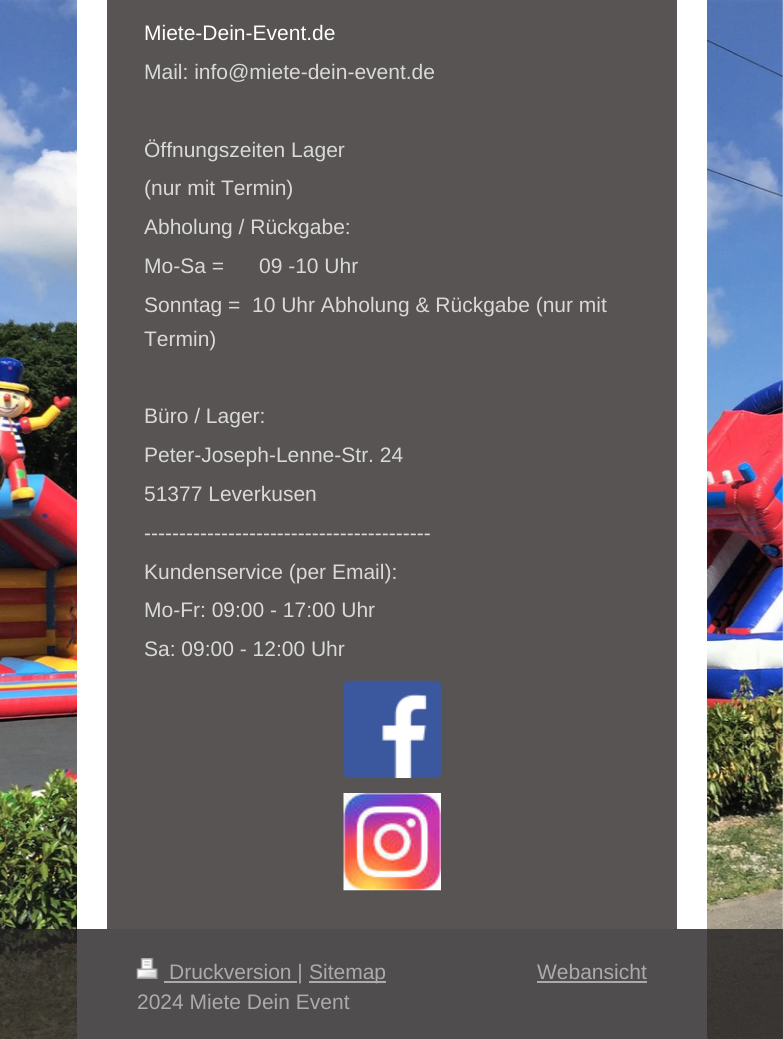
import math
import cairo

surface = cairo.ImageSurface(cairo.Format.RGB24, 783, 1039)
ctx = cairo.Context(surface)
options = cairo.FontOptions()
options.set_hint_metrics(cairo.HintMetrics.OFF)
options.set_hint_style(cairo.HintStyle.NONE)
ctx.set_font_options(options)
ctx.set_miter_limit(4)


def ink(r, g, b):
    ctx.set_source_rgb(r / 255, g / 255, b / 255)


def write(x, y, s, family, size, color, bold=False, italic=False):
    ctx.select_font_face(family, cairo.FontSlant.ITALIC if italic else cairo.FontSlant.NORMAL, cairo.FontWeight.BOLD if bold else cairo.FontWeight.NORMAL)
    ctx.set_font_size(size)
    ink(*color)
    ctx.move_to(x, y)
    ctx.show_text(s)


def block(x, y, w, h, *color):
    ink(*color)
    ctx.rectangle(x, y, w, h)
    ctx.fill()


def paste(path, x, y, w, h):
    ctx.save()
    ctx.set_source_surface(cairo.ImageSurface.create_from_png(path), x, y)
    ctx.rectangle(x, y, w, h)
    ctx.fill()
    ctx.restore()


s1 = dict(family="Liberation Sans", size=21, color=(255, 255, 255))
s2 = dict(family="Liberation Sans", size=21, color=(218, 217, 217))
s3 = dict(family="Liberation Sans", size=21, color=(174, 170, 170))

ink(255, 255, 255)
ctx.paint()
paste("pic1.png", 0, 0, 783, 1039)
block(77, 0, 630, 1039, 255, 255, 255)
block(107, 0, 570, 929, 87, 84, 83)
write(144, 40, "Miete-Dein-Event.de", **s1)
write(144, 79, "Mail: info@miete-dein-event.de", **s2)
write(144, 157, "Öffnungszeiten Lager", **s2)
write(144, 195, "(nur mit Termin)", **s2)
write(144, 234, "Abholung / Rückgabe:", **s2)
write(144, 273, "Mo-Sa =      09 -10 Uhr", **s2)
write(144, 312, "Sonntag =  10 Uhr Abholung & Rückgabe (nur mit", **s2)
write(144, 346, "Termin)", **s2)
write(144, 423, "Büro / Lager:", **s2)
write(144, 462, "Peter-Joseph-Lenne-Str. 24", **s2)
write(144, 501, "51377 Leverkusen", **s2)
write(144, 540, "-----------------------------------------", **s2)
write(144, 579, "Kundenservice (per Email):", **s2)
write(144, 617, "Mo-Fr: 09:00 - 17:00 Uhr", **s2)
write(144, 656, "Sa: 09:00 - 12:00 Uhr", **s2)
paste("pic2.png", 343, 680, 98, 98)
paste("pic3.png", 343, 793, 98, 98)
ctx.set_source_rgba(0.137, 0.129, 0.129, 0.8)
ctx.rectangle(0, 929, 783, 110)
ctx.fill()
paste("pic4.png", 136, 958, 22, 21)
block(164, 981, 133, 2, 174, 170, 170)
write(169, 979, "Druckversion |", **s3)
block(309, 981, 77, 2, 174, 170, 170)
write(309, 979, "Sitemap", **s3)
write(137, 1009, "2024 Miete Dein Event", **s3)
write(537, 979, "Webansicht", **s3)
block(537, 981, 110, 2, 174, 170, 170)
surface.write_to_png("screenshot.png")
